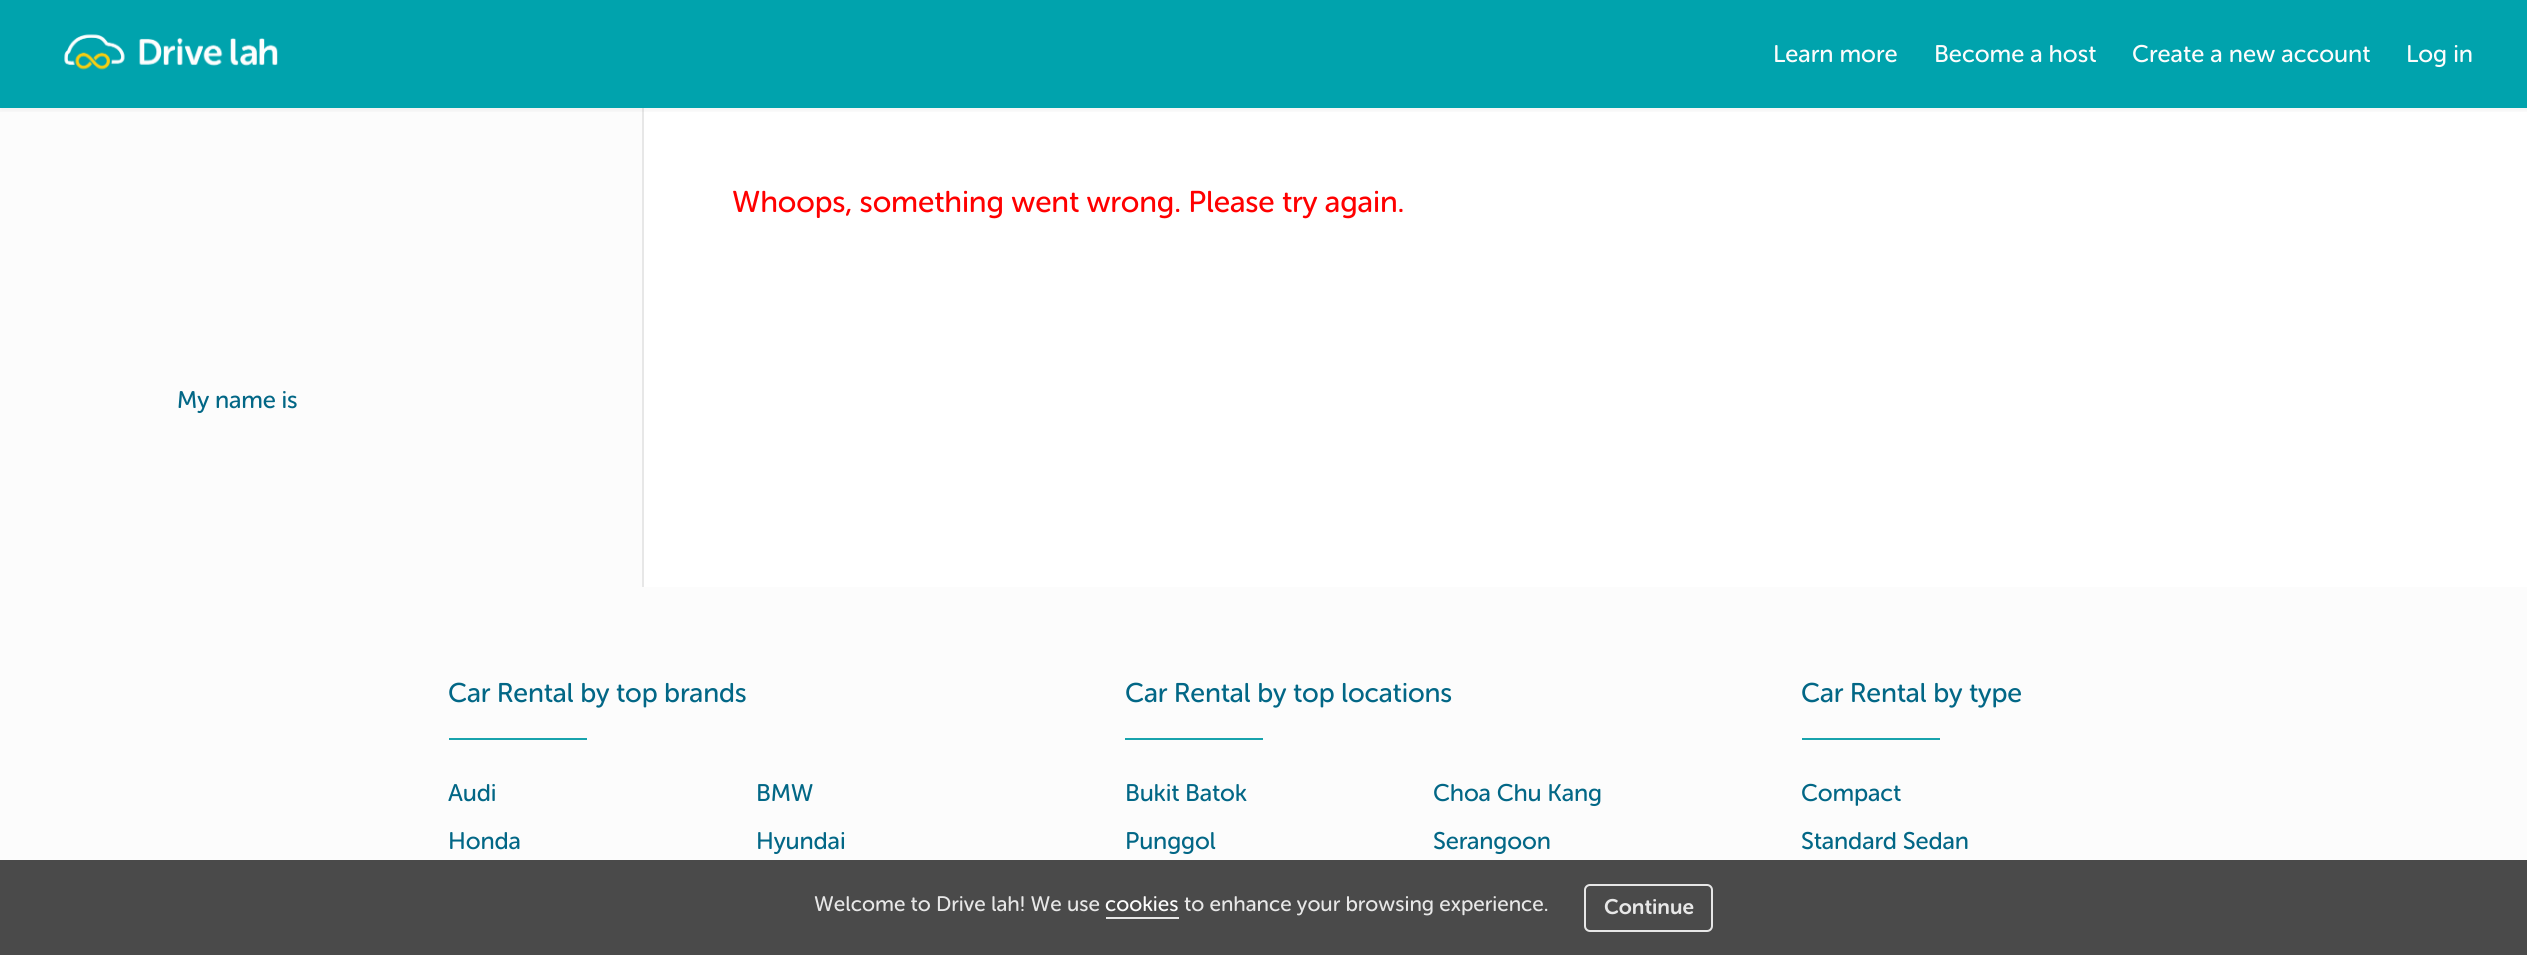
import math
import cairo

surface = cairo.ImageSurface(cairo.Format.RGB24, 2527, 955)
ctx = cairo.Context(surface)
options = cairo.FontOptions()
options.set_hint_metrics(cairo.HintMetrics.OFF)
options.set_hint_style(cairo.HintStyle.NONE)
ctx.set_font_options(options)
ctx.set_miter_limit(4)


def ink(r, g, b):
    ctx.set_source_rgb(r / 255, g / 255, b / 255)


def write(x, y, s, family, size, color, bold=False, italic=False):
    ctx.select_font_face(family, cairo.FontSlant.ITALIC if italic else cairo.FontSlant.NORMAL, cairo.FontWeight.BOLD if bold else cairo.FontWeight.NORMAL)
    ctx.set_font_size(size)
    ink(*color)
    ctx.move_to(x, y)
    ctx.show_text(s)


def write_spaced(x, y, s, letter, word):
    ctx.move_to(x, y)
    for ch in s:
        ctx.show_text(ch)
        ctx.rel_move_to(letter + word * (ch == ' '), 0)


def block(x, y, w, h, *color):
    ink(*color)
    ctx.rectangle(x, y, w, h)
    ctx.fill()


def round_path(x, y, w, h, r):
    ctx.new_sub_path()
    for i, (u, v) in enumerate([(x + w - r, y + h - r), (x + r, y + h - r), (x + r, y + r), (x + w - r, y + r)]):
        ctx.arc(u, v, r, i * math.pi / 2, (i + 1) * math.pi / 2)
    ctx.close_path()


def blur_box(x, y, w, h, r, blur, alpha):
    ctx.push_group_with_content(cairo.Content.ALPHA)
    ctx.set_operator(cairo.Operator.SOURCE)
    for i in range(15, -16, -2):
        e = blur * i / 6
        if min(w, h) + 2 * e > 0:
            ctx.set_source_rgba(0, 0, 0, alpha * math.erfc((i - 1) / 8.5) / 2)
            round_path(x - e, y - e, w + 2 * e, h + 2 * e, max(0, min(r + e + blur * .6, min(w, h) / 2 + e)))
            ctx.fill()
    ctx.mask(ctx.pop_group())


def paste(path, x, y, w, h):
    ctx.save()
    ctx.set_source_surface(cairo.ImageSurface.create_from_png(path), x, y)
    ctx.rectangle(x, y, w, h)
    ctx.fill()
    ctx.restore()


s1 = dict(family="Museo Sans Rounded", size=24, color=(252, 252, 252))
s2 = dict(family="Museo Sans Rounded", size=21, color=(231, 231, 231))
s3 = dict(family="Museo Sans Rounded", size=21, color=(252, 252, 252))
s4 = dict(family="Museo Sans Rounded SemiBold", size=21, color=(231, 231, 231))

ink(252, 252, 252)
ctx.paint()
block(0, 0, 2527, 108, 0, 163, 173)
block(644, 108, 1883, 479, 255, 255, 255)
block(642, 108, 2, 479, 231, 231, 231)
ctx.save()
ctx.rectangle(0, 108, 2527, 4)
ctx.clip()
ink(0, 0, 0)
blur_box(0, 3, 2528, 108, 0, 3, 0.05)
ctx.restore()
paste("pic1.png", 64, 34, 214, 36)
write(1773, 62, "Learn more", **s1)
write(1934, 62, "Become a host", **s1)
write(2132, 62, "Create a new account", **s1)
write(2406, 62, "Log in", **s1)
ctx.set_font_size(30)
ink(255, 0, 0)
write_spaced(732, 212, "Whoops, something went wrong. Please try again.", -0.15, 0)
ctx.set_font_size(24)
ink(2, 103, 134)
write_spaced(177, 408, "My name is", -0.15, 0)
ctx.set_font_size(27)
write_spaced(448, 702, "Car Rental by top brands", -0.15, 0)
block(449, 738, 138, 2, 24, 163, 173)
ctx.set_font_size(24)
ink(2, 103, 134)
write_spaced(448, 801, "Audi", -0.15, 0)
write_spaced(756, 801, "BMW", -0.15, 0)
write_spaced(448, 849, "Honda", -0.15, 0)
write_spaced(756, 849, "Hyundai", -0.15, 0)
ctx.set_font_size(27)
write_spaced(1125, 702, "Car Rental by top locations", -0.15, 0)
block(1125, 738, 138, 2, 24, 163, 173)
ctx.set_font_size(24)
ink(2, 103, 134)
write_spaced(1125, 801, "Bukit Batok", -0.15, 0)
write_spaced(1433, 801, "Choa Chu Kang", -0.15, 0)
write_spaced(1125, 849, "Punggol", -0.15, 0)
write_spaced(1433, 849, "Serangoon", -0.15, 0)
ctx.set_font_size(27)
write_spaced(1801, 702, "Car Rental by type", -0.15, 0)
block(1802, 738, 138, 2, 24, 163, 173)
ctx.set_font_size(24)
ink(2, 103, 134)
write_spaced(1801, 801, "Compact", -0.15, 0)
write_spaced(1801, 849, "Standard Sedan", -0.15, 0)
block(0, 860, 2527, 95, 74, 74, 74)
write(814, 911, "Welcome to Drive lah! We use", **s2)
write(1105, 911, "cookies", **s3)
block(1106, 917, 73, 2, 231, 231, 231)
write(1184, 911, "to enhance your browsing experience.", **s2)
round_path(1585, 885, 127, 46, 5)
ctx.stroke()
write(1604, 914, "Continue", **s4)
surface.write_to_png("screenshot.png")
